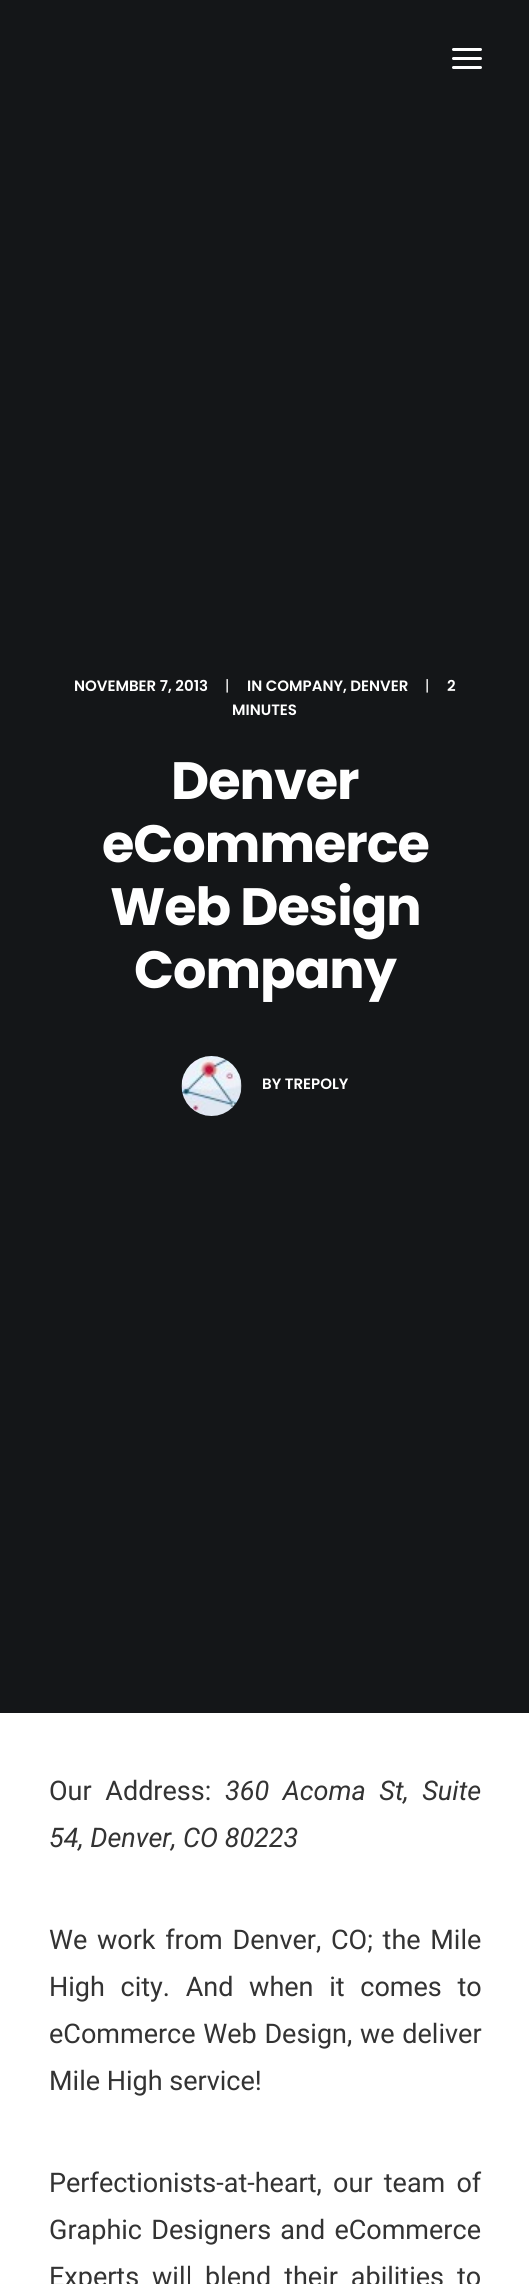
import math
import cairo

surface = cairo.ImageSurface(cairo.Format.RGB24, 529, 2284)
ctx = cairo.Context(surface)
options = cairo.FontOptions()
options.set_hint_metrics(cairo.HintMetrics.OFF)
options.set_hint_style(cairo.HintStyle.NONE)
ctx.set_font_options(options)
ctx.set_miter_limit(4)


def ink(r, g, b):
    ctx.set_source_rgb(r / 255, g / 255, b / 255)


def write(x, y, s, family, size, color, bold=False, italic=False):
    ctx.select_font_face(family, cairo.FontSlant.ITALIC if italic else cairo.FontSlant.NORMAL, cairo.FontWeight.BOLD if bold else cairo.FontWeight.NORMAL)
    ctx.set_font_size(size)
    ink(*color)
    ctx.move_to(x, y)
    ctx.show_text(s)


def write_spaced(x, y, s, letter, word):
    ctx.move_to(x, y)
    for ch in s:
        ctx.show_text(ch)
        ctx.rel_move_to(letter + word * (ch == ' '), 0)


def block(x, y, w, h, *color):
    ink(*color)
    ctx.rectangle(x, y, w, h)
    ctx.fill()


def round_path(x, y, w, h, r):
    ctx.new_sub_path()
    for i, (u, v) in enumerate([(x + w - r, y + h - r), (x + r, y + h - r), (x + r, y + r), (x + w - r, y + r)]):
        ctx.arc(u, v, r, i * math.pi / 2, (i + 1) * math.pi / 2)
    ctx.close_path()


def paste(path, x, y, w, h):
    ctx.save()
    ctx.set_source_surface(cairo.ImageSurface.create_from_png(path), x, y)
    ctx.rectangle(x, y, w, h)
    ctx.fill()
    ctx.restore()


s1 = dict(family="Poppins SemiBold", size=15, color=(255, 255, 255))
s2 = dict(family="Poppins", size=15, color=(255, 255, 255))
s3 = dict(family="Roboto", size=27, color=(51, 51, 51), italic=True)
s4 = dict(family="Roboto", size=27, color=(51, 51, 51))

ink(20, 22, 24)
ctx.paint()
ink(255, 255, 255)
round_path(452, 57, 30, 3, 1.5)
ctx.fill()
round_path(452, 48, 30, 3, 1.5)
ctx.fill()
round_path(452, 66, 30, 3, 1.5)
ctx.fill()
write(74, 691, "NOVEMBER 7, 2013", **s1)
write(225, 691, "|", **s2)
write(247, 691, "IN COMPANY, DENVER", **s1)
write(425, 691, "|", **s2)
write(447, 691, "2", **s1)
write(232, 715, "MINUTES", **s1)
ctx.select_font_face("Poppins", cairo.FontSlant.NORMAL, cairo.FontWeight.BOLD)
ctx.set_font_size(52.5)
write_spaced(171, 799, "Denver", -1, 0)
write_spaced(102, 862, "eCommerce", -1, 0)
write_spaced(110, 925, "Web Design", -1, 0)
write_spaced(134, 988, "Company", -1, 0)
paste("pic1.png", 181, 1056, 61, 60)
write(262, 1089, "BY TREPOLY", **s1)
block(0, 1713, 529, 571, 255, 255, 255)
ctx.select_font_face("Roboto")
ctx.set_font_size(27)
ink(51, 51, 51)
write_spaced(49, 1800, "Our Address:", 0, 7)
ctx.select_font_face("Roboto", cairo.FontSlant.ITALIC)
write_spaced(225, 1800, "360 Acoma St, Suite", 0, 7)
write(49, 1847, "54, Denver, CO 80223", **s3)
ctx.select_font_face("Roboto")
write_spaced(49, 1949, "We work from Denver, CO; the Mile", 0, 3)
write_spaced(49, 1996, "High city. And when it comes to", 0, 9)
write_spaced(49, 2043, "eCommerce Web Design, we deliver", 0, 1)
write(49, 2090, "Mile High service!", **s4)
write_spaced(49, 2192, "Perfectionists-at-heart, our team of", 0, 4.5)
write_spaced(49, 2239, "Graphic Designers and eCommerce", 0, 2.5)
write_spaced(49, 2286, "Experts will blend their abilities to", 0, 6.25)
surface.write_to_png("screenshot.png")
